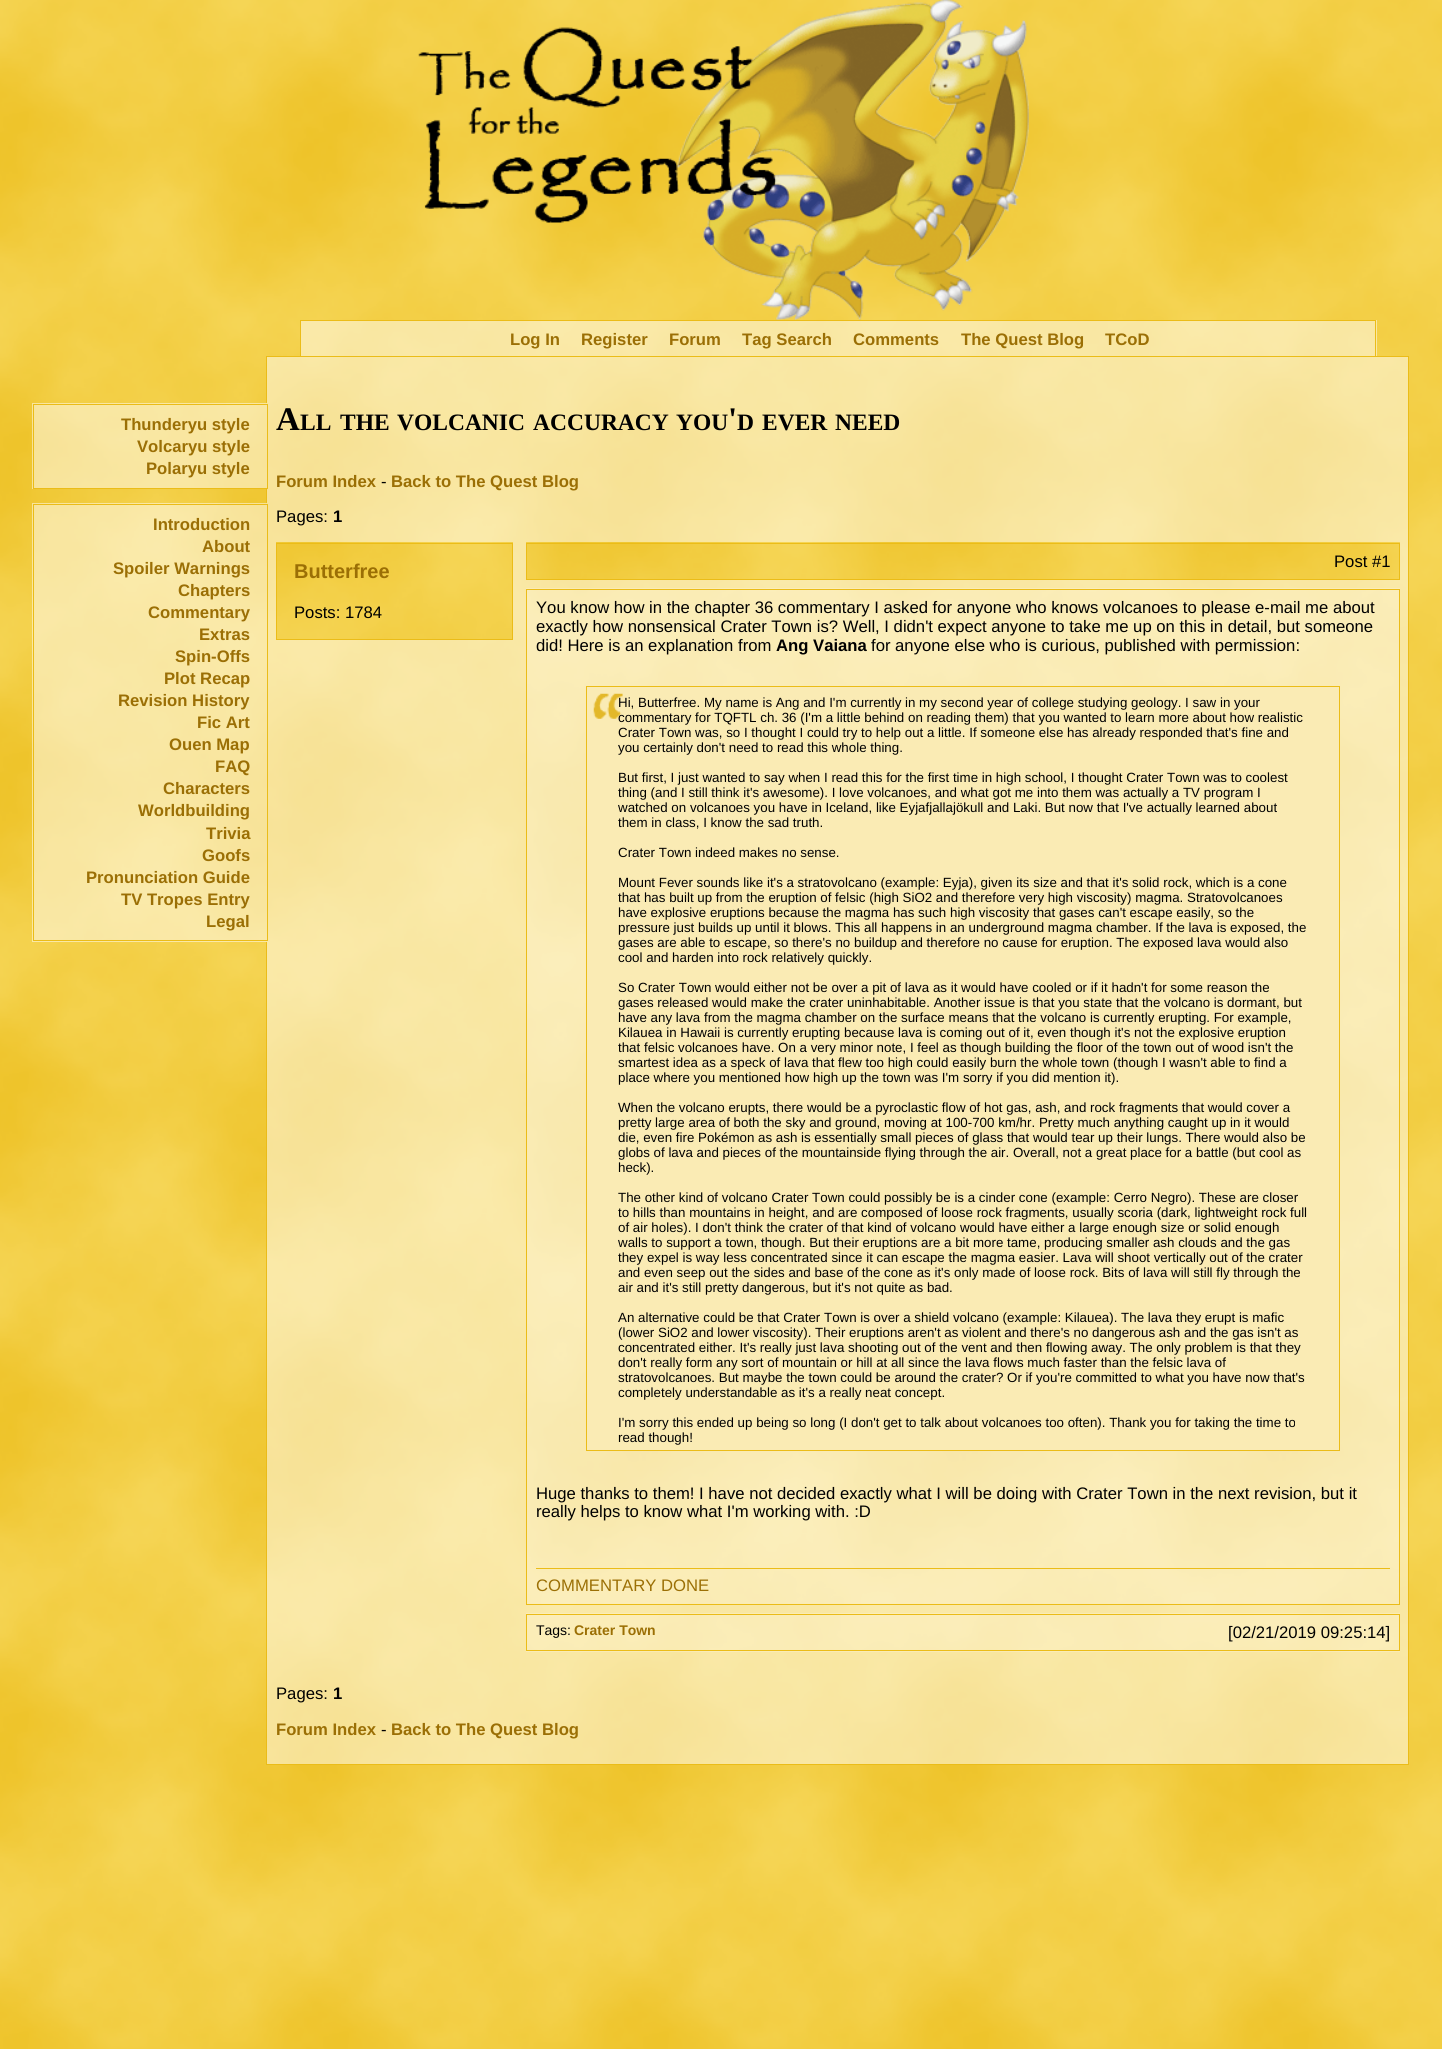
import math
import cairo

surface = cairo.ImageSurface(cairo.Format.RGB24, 1442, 2049)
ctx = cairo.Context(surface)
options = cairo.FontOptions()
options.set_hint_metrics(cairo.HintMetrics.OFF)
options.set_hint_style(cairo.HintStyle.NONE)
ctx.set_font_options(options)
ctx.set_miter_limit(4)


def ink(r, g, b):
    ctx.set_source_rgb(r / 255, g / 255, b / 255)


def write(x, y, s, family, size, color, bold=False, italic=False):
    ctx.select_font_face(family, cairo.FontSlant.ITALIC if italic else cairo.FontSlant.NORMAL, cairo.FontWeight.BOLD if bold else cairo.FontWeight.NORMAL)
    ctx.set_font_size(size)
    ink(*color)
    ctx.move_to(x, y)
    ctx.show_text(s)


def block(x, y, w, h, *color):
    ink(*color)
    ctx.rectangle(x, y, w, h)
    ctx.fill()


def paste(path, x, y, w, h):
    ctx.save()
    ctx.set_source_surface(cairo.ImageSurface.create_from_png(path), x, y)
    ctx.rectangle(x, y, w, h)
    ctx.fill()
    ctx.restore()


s1 = dict(family="Liberation Sans", size=16.67, color=(155, 111, 5), bold=True)
s2 = dict(family="Liberation Serif", size=33, color=(0, 0, 0), bold=True)
s3 = dict(family="Liberation Serif", size=23.5, color=(0, 0, 0), bold=True)
s4 = dict(family="Liberation Sans", size=16.67, color=(0, 0, 0))
s5 = dict(family="Liberation Sans", size=16.67, color=(0, 0, 0), bold=True)
s6 = dict(family="Liberation Sans", size=20, color=(155, 111, 5), bold=True)
s7 = dict(family="Liberation Sans", size=13.33, color=(0, 0, 0))
s8 = dict(family="Liberation Sans", size=16.67, color=(155, 111, 5))
s9 = dict(family="Liberation Sans", size=14, color=(0, 0, 0))
s10 = dict(family="Liberation Sans", size=14, color=(155, 111, 5), bold=True)

ink(255, 255, 255)
ctx.paint()
paste("pic1.png", 0, 0, 1442, 2049)
paste("pic2.png", 418, 0, 611, 320)
paste("pic3.png", 301, 320, 1076, 36)
block(300, 320, 1076, 1, 235, 188, 24)
block(1375, 320, 1, 36, 235, 188, 24)
block(300, 320, 1, 36, 235, 188, 24)
write(510, 345, "Log In", **s1)
write(581, 345, "Register", **s1)
write(669, 345, "Forum", **s1)
write(742, 345, "Tag Search", **s1)
write(853, 345, "Comments", **s1)
write(961, 345, "The Quest Blog", **s1)
write(1105, 345, "TCoD", **s1)
paste("pic5.png", 267, 357, 1141, 1407)
ctx.rectangle(266.5, 356.5, 1142, 1408)
ink(235, 188, 24)
ctx.set_line_width(1)
ctx.stroke()
paste("pic4.png", 32, 403, 236, 86)
ctx.rectangle(33.5, 404.5, 234, 84)
ctx.stroke()
write(121, 430, "Thunderyu style", **s1)
write(137, 452, "Volcaryu style", **s1)
write(146, 474, "Polaryu style", **s1)
write(276, 430, "A", **s2)
write(728, 430, "'", **s2)
write(300, 430, "LL", **s3)
write(340, 430, "THE", **s3)
write(397, 430, "VOLCANIC", **s3)
write(533, 430, "ACCURACY", **s3)
write(676, 430, "YOU", **s3)
write(737, 430, "D", **s3)
write(762, 430, "EVER", **s3)
write(835, 430, "NEED", **s3)
write(276, 487, "Forum Index", **s1)
write(381, 487, "-", **s4)
write(391, 487, "Back to The Quest Blog", **s1)
write(276, 522, "Pages:", **s4)
write(333, 522, "1", **s5)
paste("pic6.png", 276, 542, 237, 97)
ctx.rectangle(276.5, 543.5, 236, 96)
ink(235, 188, 24)
ctx.stroke()
write(294, 578, "Butterfree", **s6)
write(294, 618, "Posts: 1784", **s4)
paste("pic7.png", 526, 542, 874, 37)
ctx.rectangle(526.5, 543.5, 873, 36)
ink(235, 188, 24)
ctx.stroke()
write(1334, 567, "Post #1", **s4)
paste("pic8.png", 526, 588, 874, 1016)
ctx.rectangle(526.5, 589.5, 873, 1015)
ink(235, 188, 24)
ctx.stroke()
write(536, 613, "You know how in the chapter 36 commentary I asked for anyone who knows volcanoes to please e-mail me about", **s4)
write(536, 632, "exactly how nonsensical Crater Town is? Well, I didn't expect anyone to take me up on this in detail, but someone", **s4)
write(536, 651, "did! Here is an explanation from", **s4)
write(776, 651, "Ang Vaiana", **s5)
write(871, 651, "for anyone else who is curious, published with permission:", **s4)
block(587, 687, 752, 763, 250, 235, 180)
paste("pic9.png", 593, 693, 30, 26)
ctx.rectangle(586.5, 686.5, 753, 764)
ink(235, 188, 24)
ctx.stroke()
write(618, 707, "Hi, Butterfree. My name is Ang and I'm currently in my second year of college studying geology. I saw in your", **s7)
write(618, 722, "commentary for TQFTL ch. 36 (I'm a little behind on reading them) that you wanted to learn more about how realistic", **s7)
write(618, 737, "Crater Town was, so I thought I could try to help out a little. If someone else has already responded that's fine and", **s7)
write(618, 752, "you certainly don't need to read this whole thing.", **s7)
write(618, 782, "But first, I just wanted to say when I read this for the first time in high school, I thought Crater Town was to coolest", **s7)
write(618, 797, "thing (and I still think it's awesome). I love volcanoes, and what got me into them was actually a TV program I", **s7)
write(618, 812, "watched on volcanoes you have in Iceland, like Eyjafjallajökull and Laki. But now that I've actually learned about", **s7)
write(618, 827, "them in class, I know the sad truth.", **s7)
write(618, 857, "Crater Town indeed makes no sense.", **s7)
write(618, 887, "Mount Fever sounds like it's a stratovolcano (example: Eyja), given its size and that it's solid rock, which is a cone", **s7)
write(618, 902, "that has built up from the eruption of felsic (high SiO2 and therefore very high viscosity) magma. Stratovolcanoes", **s7)
write(618, 917, "have explosive eruptions because the magma has such high viscosity that gases can't escape easily, so the", **s7)
write(618, 932, "pressure just builds up until it blows. This all happens in an underground magma chamber. If the lava is exposed, the", **s7)
write(618, 947, "gases are able to escape, so there's no buildup and therefore no cause for eruption. The exposed lava would also", **s7)
write(618, 962, "cool and harden into rock relatively quickly.", **s7)
write(618, 992, "So Crater Town would either not be over a pit of lava as it would have cooled or if it hadn't for some reason the", **s7)
write(618, 1007, "gases released would make the crater uninhabitable. Another issue is that you state that the volcano is dormant, but", **s7)
write(618, 1022, "have any lava from the magma chamber on the surface means that the volcano is currently erupting. For example,", **s7)
write(618, 1037, "Kilauea in Hawaii is currently erupting because lava is coming out of it, even though it's not the explosive eruption", **s7)
write(618, 1052, "that felsic volcanoes have. On a very minor note, I feel as though building the floor of the town out of wood isn't the", **s7)
write(618, 1067, "smartest idea as a speck of lava that flew too high could easily burn the whole town (though I wasn't able to find a", **s7)
write(618, 1082, "place where you mentioned how high up the town was I'm sorry if you did mention it).", **s7)
write(618, 1112, "When the volcano erupts, there would be a pyroclastic flow of hot gas, ash, and rock fragments that would cover a", **s7)
write(618, 1127, "pretty large area of both the sky and ground, moving at 100-700 km/hr. Pretty much anything caught up in it would", **s7)
write(618, 1142, "die, even fire Pokémon as ash is essentially small pieces of glass that would tear up their lungs. There would also be", **s7)
write(618, 1157, "globs of lava and pieces of the mountainside flying through the air. Overall, not a great place for a battle (but cool as", **s7)
write(618, 1172, "heck).", **s7)
write(618, 1202, "The other kind of volcano Crater Town could possibly be is a cinder cone (example: Cerro Negro). These are closer", **s7)
write(618, 1217, "to hills than mountains in height, and are composed of loose rock fragments, usually scoria (dark, lightweight rock full", **s7)
write(618, 1232, "of air holes). I don't think the crater of that kind of volcano would have either a large enough size or solid enough", **s7)
write(618, 1247, "walls to support a town, though. But their eruptions are a bit more tame, producing smaller ash clouds and the gas", **s7)
write(618, 1262, "they expel is way less concentrated since it can escape the magma easier. Lava will shoot vertically out of the crater", **s7)
write(618, 1277, "and even seep out the sides and base of the cone as it's only made of loose rock. Bits of lava will still fly through the", **s7)
write(618, 1292, "air and it's still pretty dangerous, but it's not quite as bad.", **s7)
write(618, 1322, "An alternative could be that Crater Town is over a shield volcano (example: Kilauea). The lava they erupt is mafic", **s7)
write(618, 1337, "(lower SiO2 and lower viscosity). Their eruptions aren't as violent and there's no dangerous ash and the gas isn't as", **s7)
write(618, 1352, "concentrated either. It's really just lava shooting out of the vent and then flowing away. The only problem is that they", **s7)
write(618, 1367, "don't really form any sort of mountain or hill at all since the lava flows much faster than the felsic lava of", **s7)
write(618, 1382, "stratovolcanoes. But maybe the town could be around the crater? Or if you're committed to what you have now that's", **s7)
write(618, 1397, "completely understandable as it's a really neat concept.", **s7)
write(618, 1427, "I'm sorry this ended up being so long (I don't get to talk about volcanoes too often). Thank you for taking the time to", **s7)
write(618, 1442, "read though!", **s7)
write(536, 1499, "Huge thanks to them! I have not decided exactly what I will be doing with Crater Town in the next revision, but it", **s4)
write(536, 1517, "really helps to know what I'm working with. :D", **s4)
block(536, 1568, 854, 1, 235, 188, 24)
write(536, 1591, "COMMENTARY DONE", **s8)
paste("pic10.png", 526, 1613, 874, 39)
ctx.rectangle(526.5, 1614.5, 873, 36)
ink(235, 188, 24)
ctx.stroke()
write(536, 1635, "Tags:", **s9)
write(574, 1635, "Crater Town", **s10)
write(1228, 1638, "[02/21/2019 09:25:14]", **s4)
write(276, 1699, "Pages:", **s4)
write(333, 1699, "1", **s5)
write(276, 1735, "Forum Index", **s1)
write(381, 1735, "-", **s4)
write(391, 1735, "Back to The Quest Blog", **s1)
paste("pic11.png", 32, 503, 236, 439)
ctx.rectangle(33.5, 504.5, 234, 436)
ink(235, 188, 24)
ctx.stroke()
write(153, 530, "Introduction", **s1)
write(202, 552, "About", **s1)
write(113, 574, "Spoiler Warnings", **s1)
write(178, 596, "Chapters", **s1)
write(148, 618, "Commentary", **s1)
write(199, 640, "Extras", **s1)
write(175, 662, "Spin-Offs", **s1)
write(164, 684, "Plot Recap", **s1)
write(118, 706, "Revision History", **s1)
write(197, 728, "Fic Art", **s1)
write(169, 750, "Ouen Map", **s1)
write(215, 772, "FAQ", **s1)
write(163, 794, "Characters", **s1)
write(138, 816, "Worldbuilding", **s1)
write(206, 839, "Trivia", **s1)
write(202, 861, "Goofs", **s1)
write(86, 883, "Pronunciation Guide", **s1)
write(121, 905, "TV Tropes Entry", **s1)
write(206, 927, "Legal", **s1)
surface.write_to_png("screenshot.png")
